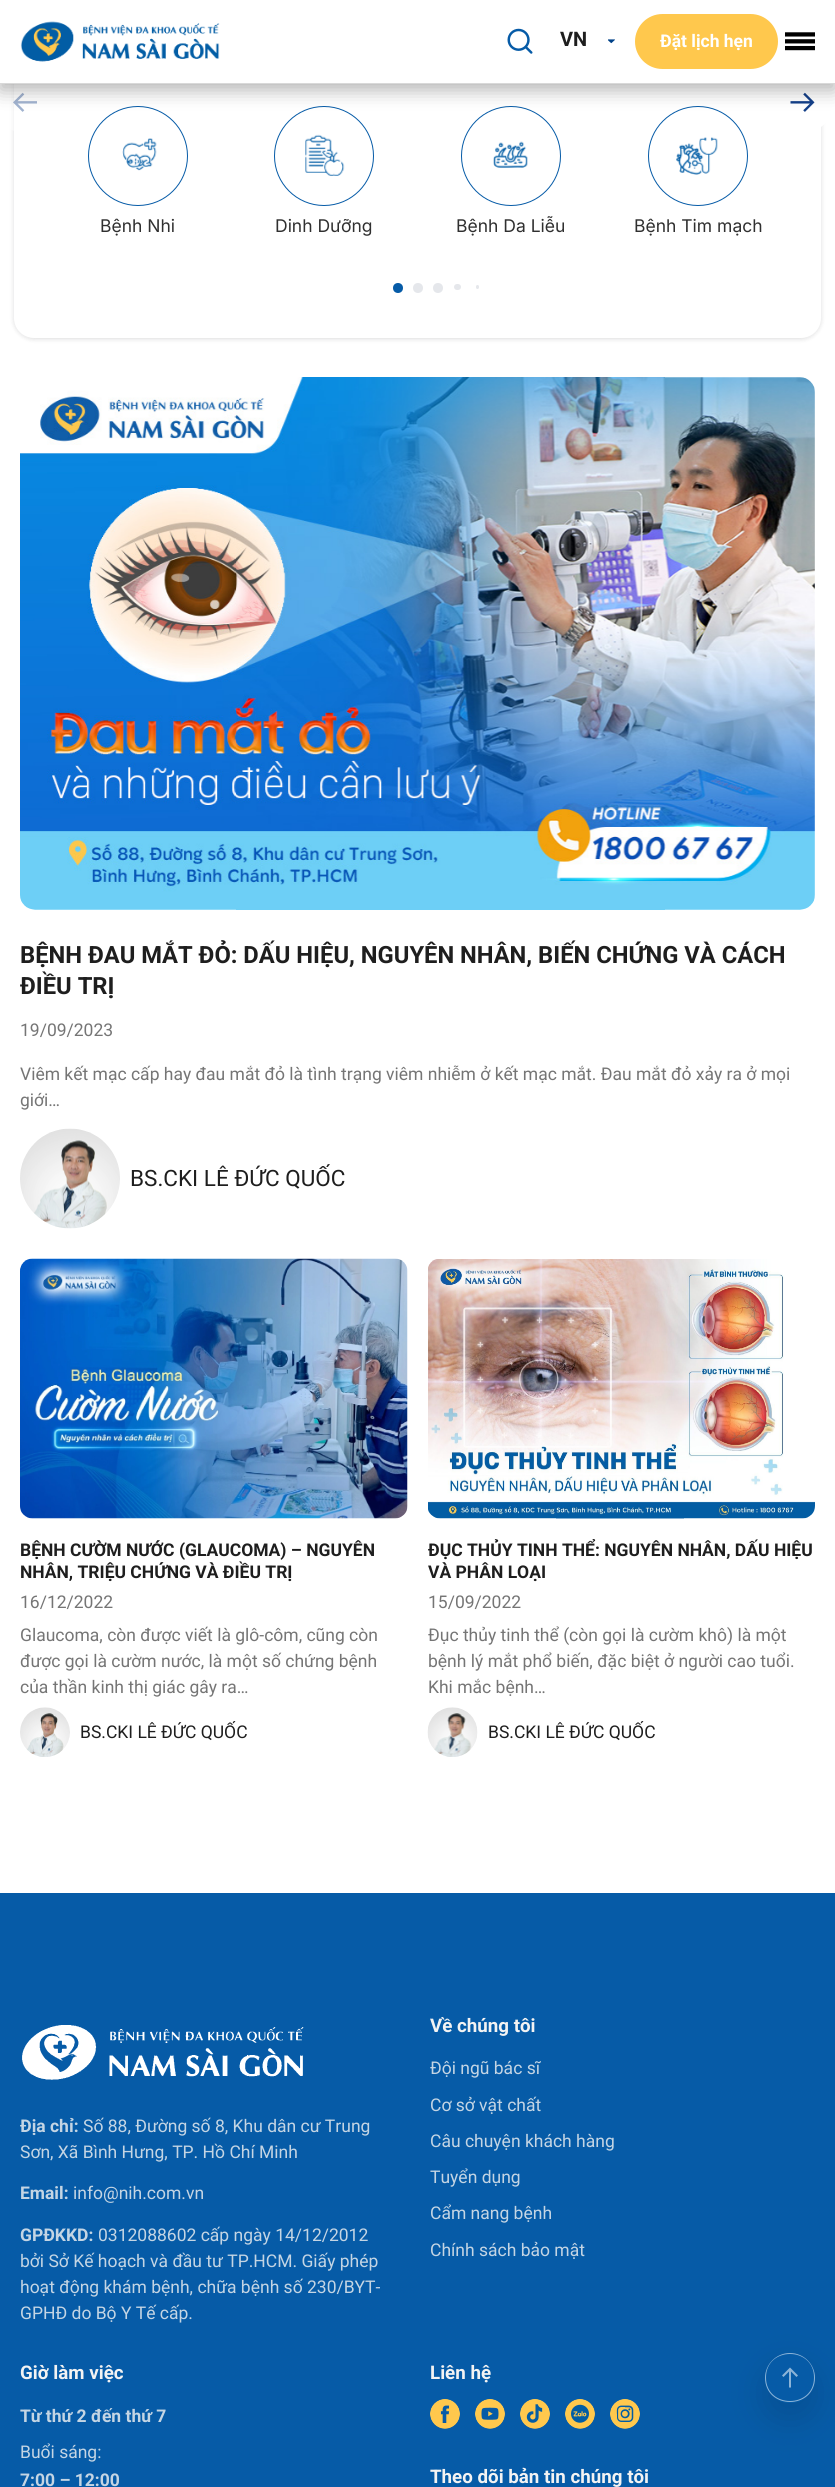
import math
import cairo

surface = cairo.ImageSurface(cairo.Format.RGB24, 835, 2487)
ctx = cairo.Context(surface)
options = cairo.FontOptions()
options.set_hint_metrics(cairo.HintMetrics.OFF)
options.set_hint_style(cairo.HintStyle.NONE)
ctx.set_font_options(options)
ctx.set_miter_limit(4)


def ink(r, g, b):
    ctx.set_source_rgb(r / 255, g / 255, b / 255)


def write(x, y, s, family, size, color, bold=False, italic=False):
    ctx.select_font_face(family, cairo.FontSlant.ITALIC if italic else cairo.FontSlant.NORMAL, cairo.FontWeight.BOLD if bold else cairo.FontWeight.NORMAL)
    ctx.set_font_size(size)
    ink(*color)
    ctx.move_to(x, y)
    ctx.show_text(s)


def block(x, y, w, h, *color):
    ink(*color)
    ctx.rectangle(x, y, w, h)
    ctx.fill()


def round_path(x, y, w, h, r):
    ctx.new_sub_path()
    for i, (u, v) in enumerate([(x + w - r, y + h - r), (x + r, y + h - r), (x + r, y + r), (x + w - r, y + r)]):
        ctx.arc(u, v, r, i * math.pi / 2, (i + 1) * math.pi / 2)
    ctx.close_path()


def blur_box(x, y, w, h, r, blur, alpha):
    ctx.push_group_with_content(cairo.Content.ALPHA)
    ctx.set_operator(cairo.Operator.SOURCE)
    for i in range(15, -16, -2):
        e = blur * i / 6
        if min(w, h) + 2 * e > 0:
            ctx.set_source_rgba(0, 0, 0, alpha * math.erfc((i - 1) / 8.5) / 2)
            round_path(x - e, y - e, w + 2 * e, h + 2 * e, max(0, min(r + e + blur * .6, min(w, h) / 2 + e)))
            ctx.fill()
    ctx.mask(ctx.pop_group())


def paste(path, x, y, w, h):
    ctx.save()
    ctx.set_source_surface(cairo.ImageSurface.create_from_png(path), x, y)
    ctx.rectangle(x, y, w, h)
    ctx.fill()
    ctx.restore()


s1 = dict(family="Roboto", size=20, color=(30, 30, 30), bold=True)
s2 = dict(family="Roboto", size=17.5, color=(255, 255, 255), bold=True)
s3 = dict(family="Inter", size=17.5, color=(48, 48, 48))
s4 = dict(family="Roboto", size=23.75, color=(30, 30, 30), bold=True)
s5 = dict(family="Roboto", size=17.5, color=(117, 117, 117))
s6 = dict(family="Roboto", size=22.5, color=(30, 30, 30))
s7 = dict(family="Roboto", size=17.5, color=(30, 30, 30), bold=True)
s8 = dict(family="Roboto", size=17.5, color=(30, 30, 30))
s9 = dict(family="Roboto", size=18.75, color=(243, 243, 243), bold=True)
s10 = dict(family="Roboto", size=17.5, color=(196, 213, 228))
s11 = dict(family="Roboto", size=17.5, color=(196, 213, 228), bold=True)

ink(255, 255, 255)
ctx.paint()
ink(12, 12, 13)
blur_box(14, -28, 807, 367, 20, 2.5, 0.05)
blur_box(14, -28, 807, 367, 20, 2.5, 0.1)
ink(255, 255, 255)
round_path(14, -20, 807, 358, 20)
ctx.fill()
ctx.set_source_rgba(1, 1, 1, 0.4)
ctx.arc(25, 103, 30, 0, 2 * math.pi)
ctx.fill()
paste("pic5.png", 13, 92, 24, 20)
ink(255, 255, 255)
ctx.arc(803, 103, 30, 0, 2 * math.pi)
ctx.fill()
paste("pic6.png", 790, 92, 25, 20)
ctx.arc(138, 156, 49.5, 0, 2 * math.pi)
ink(6, 91, 167)
ctx.set_line_width(1)
ctx.stroke()
ctx.arc(324, 156, 49.5, 0, 2 * math.pi)
ctx.stroke()
ctx.arc(511, 156, 49.5, 0, 2 * math.pi)
ctx.stroke()
ctx.arc(698, 156, 49.5, 0, 2 * math.pi)
ctx.stroke()
ink(0, 0, 0)
blur_box(0, 6, 835, 84, 0, 9.5, 0.3)
block(0, 0, 835, 83, 255, 255, 255)
block(0, 83, 835, 1, 217, 217, 217)
paste("pic1.png", 20, 21, 200, 41)
paste("pic2.png", 507, 28, 26, 26)
write(560, 46, "VN", **s1)
paste("pic3.png", 608, 39, 7, 5)
ink(255, 200, 77)
round_path(635, 14, 143, 55, 27.5)
ctx.fill()
write(660, 47, "Đặt lịch hẹn", **s2)
paste("pic4.png", 785, 32, 30, 19)
paste("pic7.png", 122, 138, 35, 33)
write(100, 232, "Bệnh Nhi", **s3)
paste("pic8.png", 305, 134, 40, 42)
write(275, 232, "Dinh Dưỡng", **s3)
paste("pic9.png", 493, 141, 35, 27)
write(456, 232, "Bệnh Da Liễu", **s3)
paste("pic10.png", 676, 137, 42, 38)
write(634, 232, "Bệnh Tim mạch", **s3)
ink(6, 91, 167)
ctx.new_path()
ctx.arc(398, 288, 5, 0, 2 * math.pi)
ctx.fill()
ink(229, 231, 235)
ctx.arc(418, 288, 5, 0, 2 * math.pi)
ctx.fill()
ctx.arc(438, 288, 5, 0, 2 * math.pi)
ctx.fill()
round_path(454, 284, 7, 6, 3)
ctx.fill()
round_path(476, 285, 3, 4, 1.5)
ctx.fill()
paste("pic11.png", 20, 377, 795, 533)
write(20, 963, "BỆNH ĐAU MẮT ĐỎ: DẤU HIỆU, NGUYÊN NHÂN, BIẾN CHỨNG VÀ CÁCH", **s4)
write(20, 994, "ĐIỀU TRỊ", **s4)
write(20, 1036, "19/09/2023", **s5)
write(20, 1080, "Viêm kết mạc cấp hay đau mắt đỏ là tình trạng viêm nhiễm ở kết mạc mắt. Đau mắt đỏ xảy ra ở mọi", **s5)
write(20, 1106, "giới…", **s5)
paste("pic12.png", 20, 1128, 100, 101)
write(130, 1186, "BS.CKI LÊ ĐỨC QUỐC", **s6)
paste("pic13.png", 20, 1258, 388, 261)
write(20, 1556, "BỆNH CƯỜM NƯỚC (GLAUCOMA) – NGUYÊN", **s7)
write(20, 1578, "NHÂN, TRIỆU CHỨNG VÀ ĐIỀU TRỊ", **s7)
write(20, 1608, "16/12/2022", **s5)
write(20, 1641, "Glaucoma, còn được viết là glô-côm, cũng còn", **s5)
write(20, 1667, "được gọi là cườm nước, là một số chứng bệnh", **s5)
write(20, 1693, "của thần kinh thị giác gây ra…", **s5)
paste("pic14.png", 20, 1707, 50, 50)
write(80, 1738, "BS.CKI LÊ ĐỨC QUỐC", **s8)
paste("pic15.png", 428, 1259, 387, 260)
ctx.save()
ctx.rectangle(428, 1539, 387, 45)
ctx.clip()
write(428, 1556, "ĐỤC THỦY TINH THỂ: NGUYÊN NHÂN, DẤU HIỆU", **s7)
ctx.restore()
write(428, 1578, "VÀ PHÂN LOẠI", **s7)
write(428, 1608, "15/09/2022", **s5)
write(428, 1641, "Đục thủy tinh thể (còn gọi là cườm khô) là một", **s5)
write(428, 1667, "bệnh lý mắt phổ biến, đặc biệt ở người cao tuổi.", **s5)
write(428, 1693, "Khi mắc bệnh…", **s5)
paste("pic16.png", 427, 1707, 51, 50)
write(488, 1738, "BS.CKI LÊ ĐỨC QUỐC", **s8)
block(0, 1893, 835, 594, 6, 91, 167)
write(430, 2032, "Về chúng tôi", **s9)
write(430, 2074, "Đội ngũ bác sĩ", **s10)
write(430, 2111, "Cơ sở vật chất", **s10)
write(430, 2147, "Câu chuyện khách hàng", **s10)
write(430, 2183, "Tuyển dụng", **s10)
write(430, 2219, "Cẩm nang bệnh", **s10)
write(430, 2256, "Chính sách bảo mật", **s10)
write(20, 2379, "Giờ làm việc", **s9)
write(20, 2422, "Từ thứ 2 đến thứ 7", **s11)
write(20, 2458, "Buổi sáng:", **s10)
write(20, 2486, "7:00 – 12:00", **s11)
write(430, 2379, "Liên hệ", **s9)
paste("pic17.png", 430, 2399, 30, 30)
paste("pic18.png", 475, 2399, 30, 30)
paste("pic19.png", 520, 2399, 30, 30)
paste("pic20.png", 565, 2399, 30, 30)
paste("pic21.png", 610, 2399, 30, 30)
write(430, 2483, "Theo dõi bản tin chúng tôi", **s9)
paste("pic22.png", 22, 2025, 282, 55)
write(20, 2132, "Địa chỉ:", **s11)
write(83, 2132, "Số 88, Đường số 8, Khu dân cư Trung", **s10)
write(20, 2158, "Sơn, Xã Bình Hưng, TP. Hồ Chí Minh", **s10)
write(20, 2199, "Email:", **s11)
write(73, 2199, "info@nih.com.vn", **s10)
write(20, 2241, "GPĐKKD:", **s11)
write(98, 2241, "0312088602 cấp ngày 14/12/2012", **s10)
write(20, 2267, "bởi Sở Kế hoạch và đầu tư TP.HCM. Giấy phép", **s10)
write(20, 2293, "hoạt động khám bệnh, chữa bệnh số 230/BYT-", **s10)
write(20, 2319, "GPHĐ do Bộ Y Tế cấp.", **s10)
ctx.save()
ctx.set_fill_rule(cairo.FillRule.EVEN_ODD)
ctx.new_path()
ctx.move_to(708, 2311)
ctx.line_to(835, 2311)
ctx.line_to(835, 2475)
ctx.line_to(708, 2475)
ctx.close_path()
ctx.move_to(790, 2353)
ctx.curve_to(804, 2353, 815, 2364, 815, 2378)
ctx.curve_to(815, 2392, 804, 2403, 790, 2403)
ctx.curve_to(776, 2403, 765, 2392, 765, 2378)
ctx.curve_to(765, 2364, 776, 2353, 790, 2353)
ctx.close_path()
ctx.clip()
ink(0, 0, 0)
blur_box(765, 2368, 50, 50, 25, 18.5, 0.12)
ctx.restore()
ctx.save()
round_path(765, 2353, 50, 50, 25)
ctx.clip()
ctx.new_path()
ctx.move_to(765.5, 2377.5)
ctx.curve_to(765.5, 2345.5, 814.5, 2345.5, 814.5, 2377.5)
ctx.curve_to(814.5, 2409.5, 765.5, 2409.5, 765.5, 2377.5)
ctx.close_path()
ink(140, 180, 215)
ctx.stroke()
ctx.restore()
ink(140, 180, 215)
ctx.new_path()
ctx.move_to(798, 2375.5)
ctx.line_to(796.5, 2377)
ctx.line_to(791, 2371.5)
ctx.line_to(791, 2387.5)
ctx.line_to(789, 2387.5)
ctx.line_to(789, 2371.5)
ctx.line_to(783.5, 2377)
ctx.line_to(782, 2375.5)
ctx.line_to(790, 2367.5)
ctx.close_path()
ctx.fill()
surface.write_to_png("screenshot.png")
